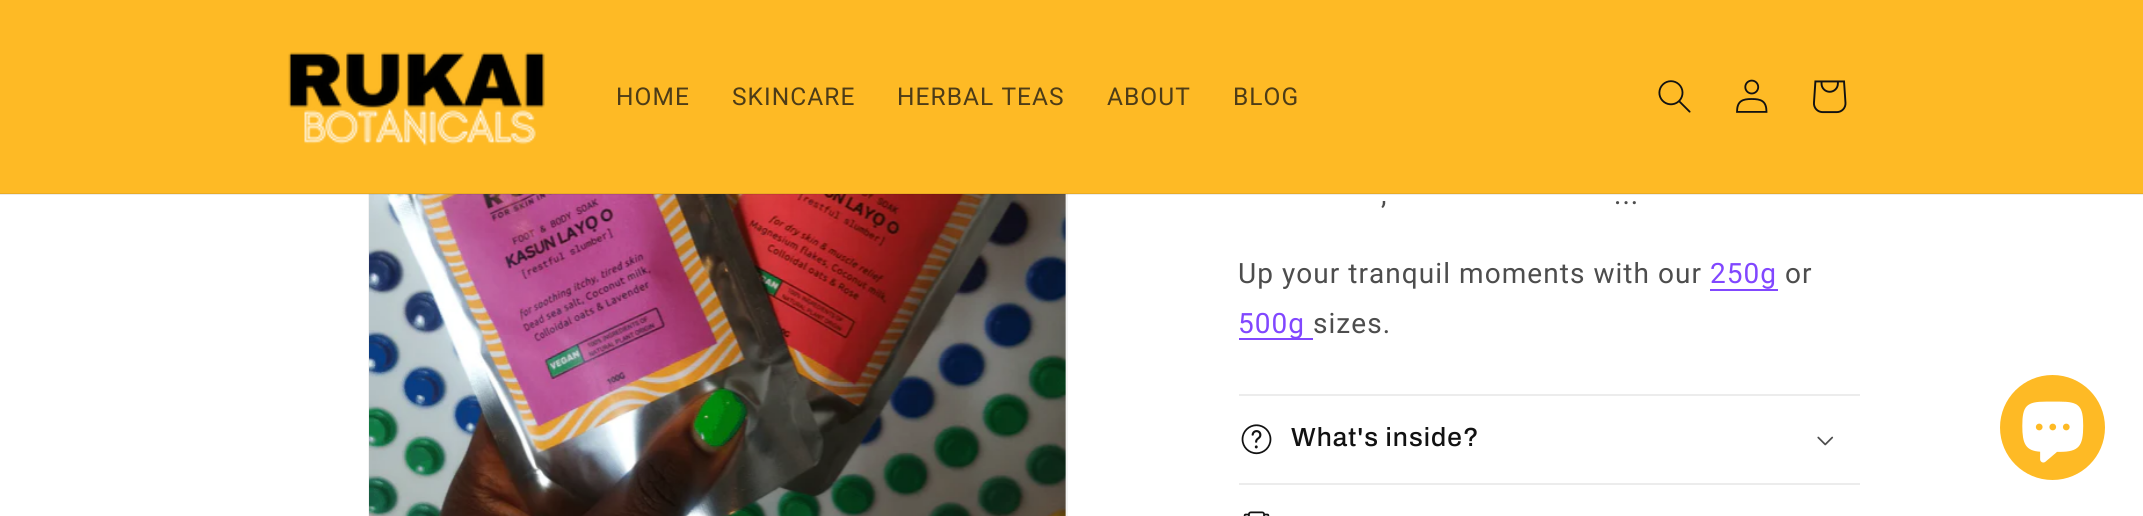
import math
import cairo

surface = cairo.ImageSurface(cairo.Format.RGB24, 2143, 516)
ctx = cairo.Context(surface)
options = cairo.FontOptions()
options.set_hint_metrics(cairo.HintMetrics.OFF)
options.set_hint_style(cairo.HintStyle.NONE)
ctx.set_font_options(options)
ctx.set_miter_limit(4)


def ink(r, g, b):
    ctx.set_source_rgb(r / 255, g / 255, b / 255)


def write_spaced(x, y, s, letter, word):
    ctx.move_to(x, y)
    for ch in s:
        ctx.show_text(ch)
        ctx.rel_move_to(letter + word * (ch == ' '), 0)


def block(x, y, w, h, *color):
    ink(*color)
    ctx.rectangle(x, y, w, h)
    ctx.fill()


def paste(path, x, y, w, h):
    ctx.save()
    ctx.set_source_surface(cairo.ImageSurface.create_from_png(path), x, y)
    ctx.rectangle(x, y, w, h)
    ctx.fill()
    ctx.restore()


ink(255, 255, 255)
ctx.paint()
ctx.rectangle(369, -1, 698, 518)
ink(243, 243, 243)
ctx.stroke()
block(0, 0, 2143, 194, 254, 186, 37)
paste("pic5.png", 369, 194, 697, 322)
ctx.set_source_rgba(0.071, 0.071, 0.071, 0.08)
ctx.rectangle(0, 193, 2143, 2)
ctx.fill()
paste("pic1.png", 288, 52, 257, 94)
ctx.select_font_face("Roboto")
ctx.set_font_size(24.5)
ink(77, 60, 23)
write_spaced(616, 105, "HOME", 1.05, 0)
write_spaced(732, 105, "SKINCARE", 1.05, 0)
write_spaced(897, 105, "HERBAL TEAS", 1.05, 0)
write_spaced(1107, 105, "ABOUT", 1.05, 0)
write_spaced(1233, 105, "BLOG", 1.05, 0)
paste("pic2.png", 1658, 80, 33, 33)
paste("pic3.png", 1736, 79, 32, 34)
paste("pic4.png", 1813, 80, 34, 34)
ctx.set_font_size(28)
ink(77, 77, 77)
write_spaced(1381, 204, ",", 1.05, 0)
write_spaced(1614, 204, "...", 1.05, 0)
write_spaced(1238, 283, "Up your tranquil moments with our", 1.05, 0)
ink(129, 71, 255)
write_spaced(1710, 283, "250g", 1.05, 0)
block(1710, 289, 68, 2, 129, 71, 255)
ink(77, 77, 77)
write_spaced(1785, 283, "or", 1.05, 0)
block(1239, 338, 74, 2, 129, 71, 255)
write_spaced(1238, 333, "500g", 1.05, 0)
ink(77, 77, 77)
write_spaced(1313, 333, "sizes.", 1.05, 0)
block(1239, 394, 621, 2, 236, 236, 236)
block(1239, 483, 621, 2, 236, 236, 236)
paste("pic6.png", 1241, 424, 31, 31)
ctx.select_font_face("Archivo Medium")
ctx.set_font_size(26.25)
ink(18, 18, 18)
write_spaced(1291, 446, "What's inside?", 1.05, 0)
paste("pic7.png", 1817, 436, 17, 10)
paste("pic8.png", 1243, 511, 27, 5)
ink(254, 186, 37)
ctx.arc(2052.5, 427.5, 52.5, 0, 2 * math.pi)
ctx.fill()
paste("pic9.png", 2022, 401, 62, 62)
surface.write_to_png("screenshot.png")
